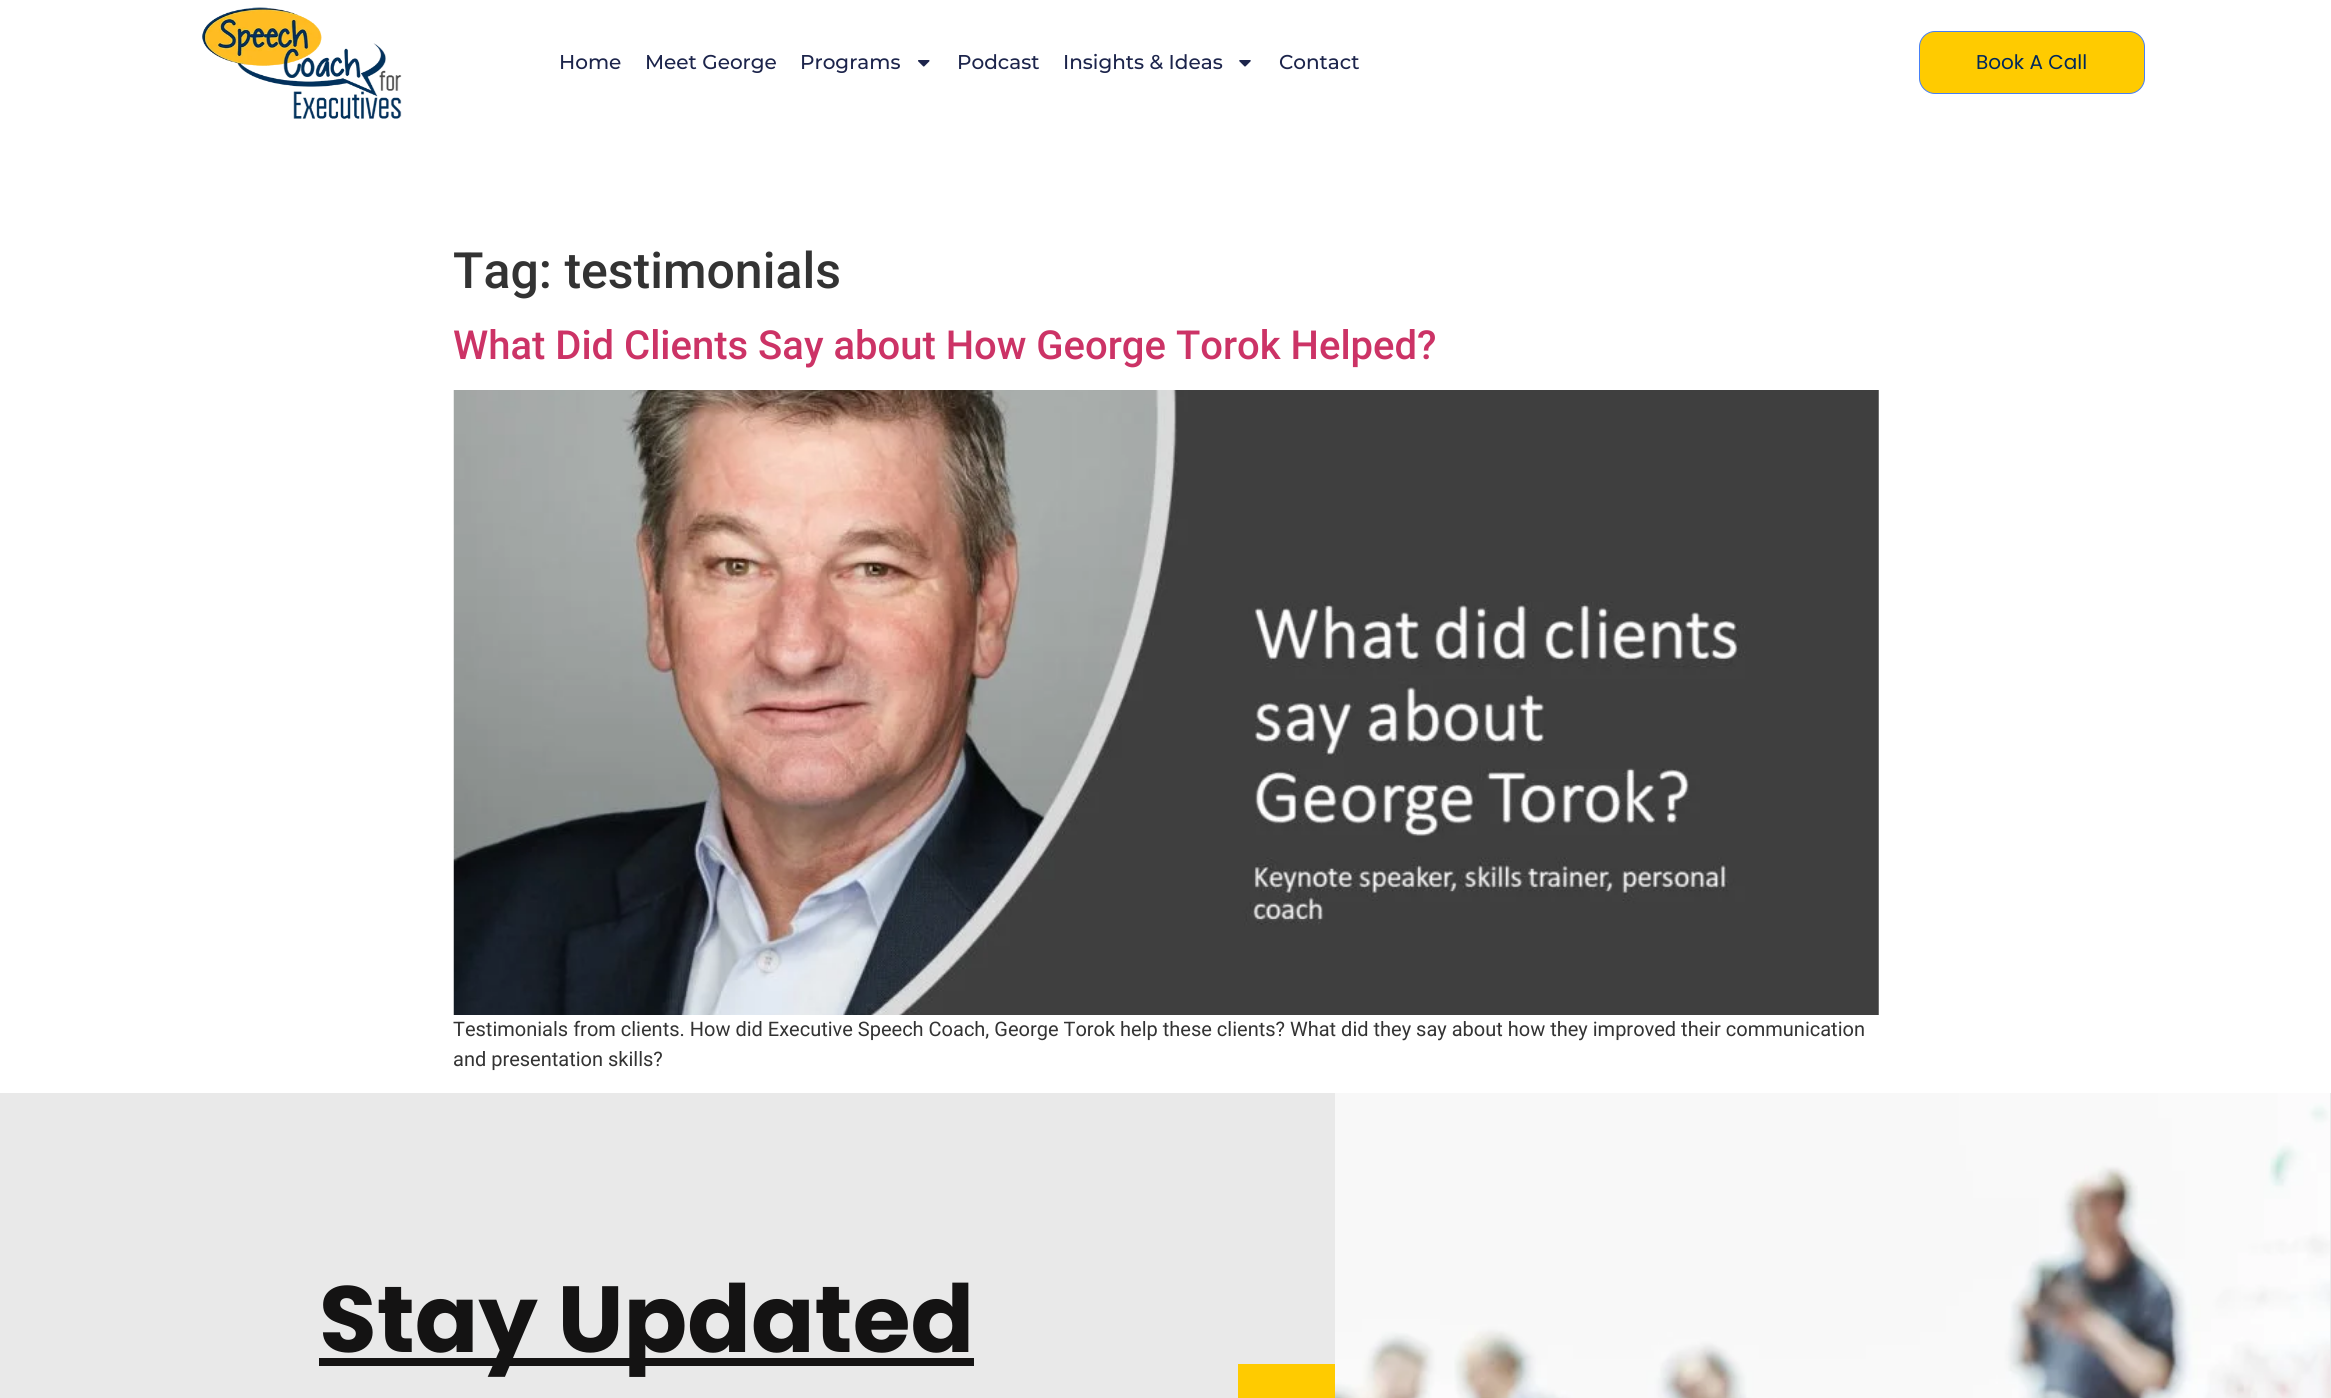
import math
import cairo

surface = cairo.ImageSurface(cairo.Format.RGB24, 2331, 1398)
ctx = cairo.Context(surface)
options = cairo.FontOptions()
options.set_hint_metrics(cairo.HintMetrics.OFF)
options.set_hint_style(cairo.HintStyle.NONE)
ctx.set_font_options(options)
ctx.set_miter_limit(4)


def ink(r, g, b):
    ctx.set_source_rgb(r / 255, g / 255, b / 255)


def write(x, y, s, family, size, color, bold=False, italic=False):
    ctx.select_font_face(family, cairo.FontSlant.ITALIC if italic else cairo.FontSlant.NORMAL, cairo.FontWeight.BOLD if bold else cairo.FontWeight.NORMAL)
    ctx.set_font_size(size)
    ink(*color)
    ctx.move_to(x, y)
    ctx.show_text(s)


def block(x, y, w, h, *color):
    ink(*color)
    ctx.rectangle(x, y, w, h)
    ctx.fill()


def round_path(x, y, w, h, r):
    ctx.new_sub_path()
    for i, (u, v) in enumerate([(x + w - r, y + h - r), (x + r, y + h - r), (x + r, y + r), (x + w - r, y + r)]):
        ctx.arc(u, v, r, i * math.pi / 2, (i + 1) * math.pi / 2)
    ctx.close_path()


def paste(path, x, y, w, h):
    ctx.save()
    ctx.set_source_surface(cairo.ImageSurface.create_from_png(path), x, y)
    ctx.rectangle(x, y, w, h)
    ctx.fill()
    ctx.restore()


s1 = dict(family="Montserrat Medium", size=20, color=(28, 36, 75))
s2 = dict(family="Poppins", size=20, color=(0, 40, 92))
s3 = dict(family="Roboto Medium", size=50, color=(51, 51, 51))
s4 = dict(family="Roboto Medium", size=40, color=(204, 51, 102))
s5 = dict(family="Roboto", size=20, color=(51, 51, 51))
s6 = dict(family="Poppins", size=93.75, color=(20, 19, 19), bold=True)

ink(255, 255, 255)
ctx.paint()
paste("pic1.png", 202, 7, 200, 112)
write(559, 69, "Home", **s1)
write(645, 69, "Meet George", **s1)
write(800, 69, "Programs", **s1)
paste("pic2.png", 918, 60, 12, 7)
write(957, 69, "Podcast", **s1)
write(1063, 69, "Insights & Ideas", **s1)
paste("pic3.png", 1239, 60, 12, 7)
write(1279, 69, "Contact", **s1)
ink(255, 203, 0)
round_path(1919.5, 31.5, 225, 62, 15.5)
ctx.fill_preserve()
ink(70, 127, 247)
ctx.set_line_width(1)
ctx.stroke()
write(1976, 69, "Book A Call", **s2)
write(453, 288, "Tag: testimonials", **s3)
write(453, 359, "What Did Clients Say about How George Torok Helped?", **s4)
paste("pic4.png", 453, 390, 1426, 625)
write(453, 1036, "Testimonials from clients. How did Executive Speech Coach, George Torok help these clients? What did they say about how they improved their communication", **s5)
write(453, 1066, "and presentation skills?", **s5)
block(0, 1093, 2331, 305, 233, 233, 233)
block(319, 1358, 655, 8, 20, 19, 19)
write(319, 1352, "Stay Updated", **s6)
block(1238, 1364, 97, 34, 255, 203, 0)
paste("pic5.png", 1335, 1093, 995, 305)
surface.write_to_png("screenshot.png")
